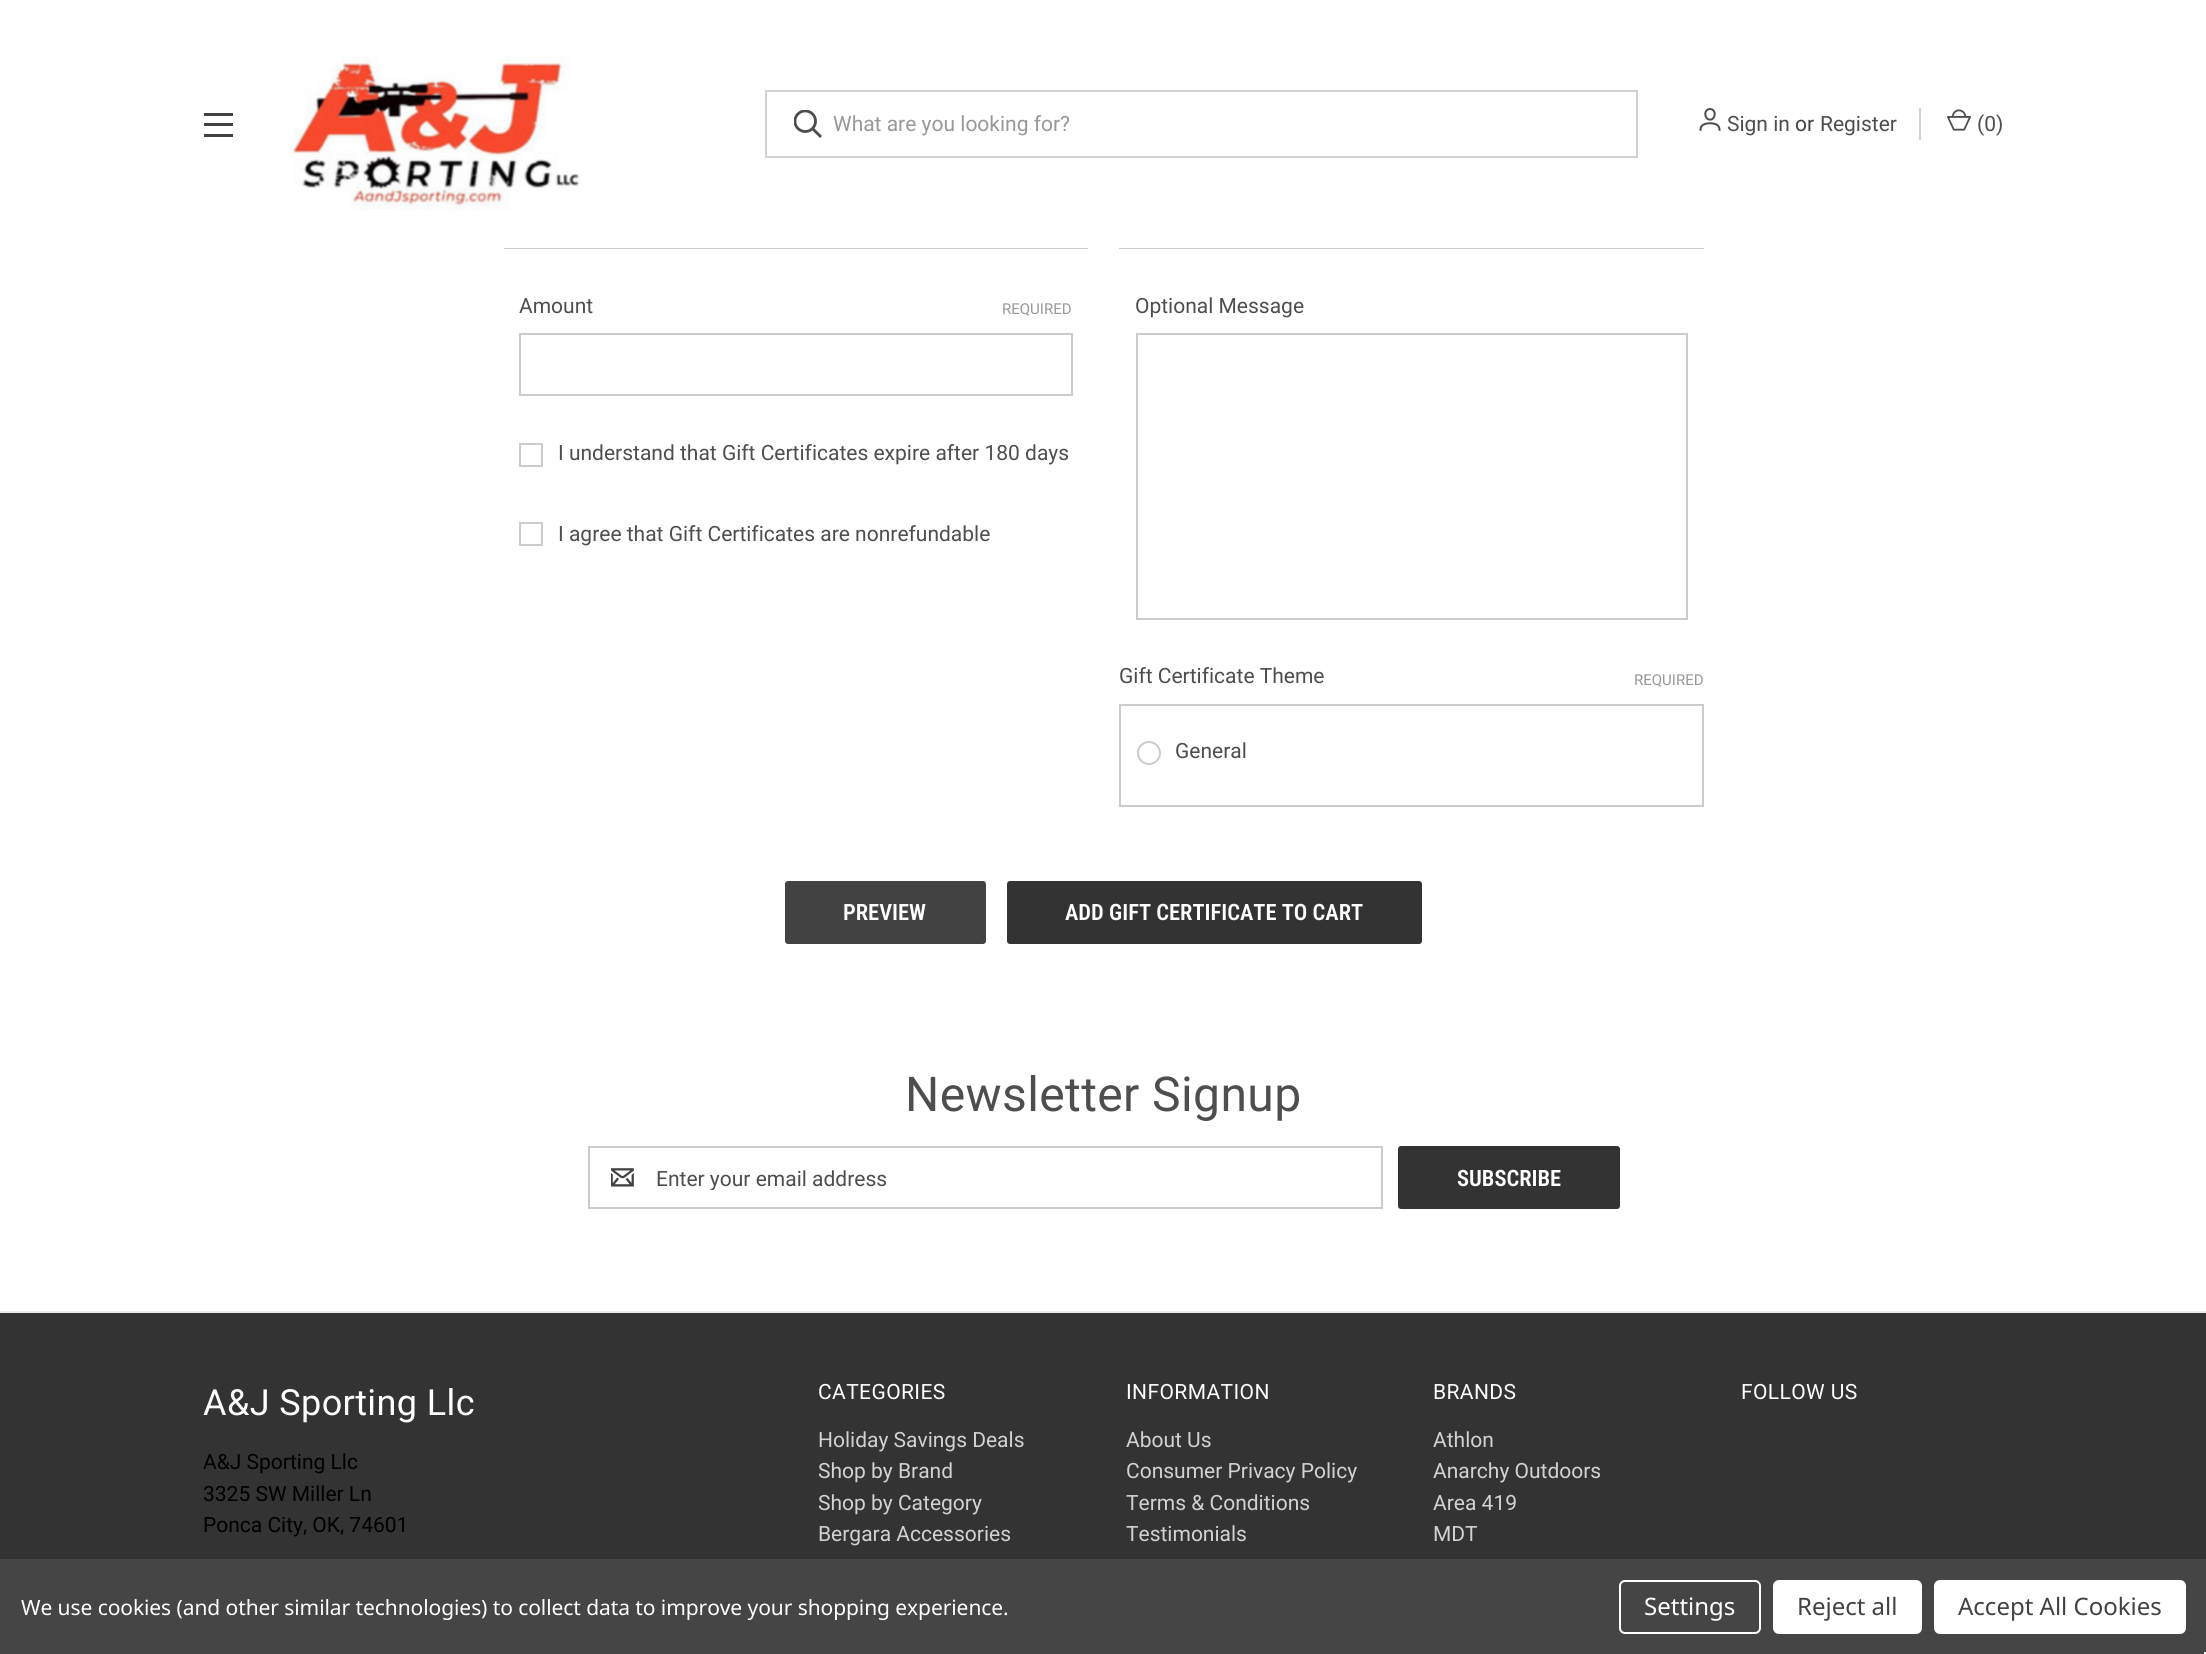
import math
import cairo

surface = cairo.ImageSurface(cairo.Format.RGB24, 2206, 1654)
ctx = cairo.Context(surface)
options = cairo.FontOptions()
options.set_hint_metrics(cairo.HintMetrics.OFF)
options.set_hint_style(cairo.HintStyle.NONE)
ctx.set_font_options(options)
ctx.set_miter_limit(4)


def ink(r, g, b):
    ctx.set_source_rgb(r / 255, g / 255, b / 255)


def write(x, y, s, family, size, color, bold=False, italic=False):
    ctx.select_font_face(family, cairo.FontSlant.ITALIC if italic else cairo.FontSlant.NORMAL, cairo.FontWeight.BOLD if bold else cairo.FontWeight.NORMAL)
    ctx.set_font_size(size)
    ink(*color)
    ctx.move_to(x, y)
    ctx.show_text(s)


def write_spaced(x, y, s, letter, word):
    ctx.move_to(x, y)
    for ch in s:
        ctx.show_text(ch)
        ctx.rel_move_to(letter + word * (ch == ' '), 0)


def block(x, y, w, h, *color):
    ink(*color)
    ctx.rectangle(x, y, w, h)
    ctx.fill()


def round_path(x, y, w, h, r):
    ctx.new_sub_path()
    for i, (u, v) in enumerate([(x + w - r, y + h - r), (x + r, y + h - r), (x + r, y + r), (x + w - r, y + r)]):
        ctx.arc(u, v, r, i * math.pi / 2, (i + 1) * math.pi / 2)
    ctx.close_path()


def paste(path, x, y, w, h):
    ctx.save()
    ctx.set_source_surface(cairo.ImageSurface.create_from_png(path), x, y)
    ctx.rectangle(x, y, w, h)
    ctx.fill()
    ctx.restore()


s1 = dict(family="Roboto", size=21, color=(152, 152, 152))
s2 = dict(family="Roboto", size=21, color=(78, 78, 78))
s3 = dict(family="Roboto", size=21, color=(66, 66, 66))
s4 = dict(family="Roboto", size=15, color=(152, 152, 152))
s5 = dict(family="Roboto Condensed SemiBold", size=22.5, color=(255, 255, 255))
s6 = dict(family="Roboto", size=21, color=(0, 0, 0))
s7 = dict(family="Roboto", size=21, color=(210, 210, 210))
s8 = dict(family="Noto Sans", size=24, color=(255, 255, 255))
s9 = dict(family="Noto Sans", size=24, color=(66, 66, 66))

ink(255, 255, 255)
ctx.paint()
ctx.rectangle(505, 187, 582, 61)
ink(204, 204, 204)
ctx.stroke()
ctx.rectangle(1120, 187, 583, 61)
ctx.stroke()
block(504, 186, 1200, 62, 255, 255, 255)
block(204, 123, 29, 3, 66, 66, 66)
block(204, 113, 29, 3, 66, 66, 66)
block(204, 134, 29, 3, 66, 66, 66)
paste("pic1.png", 290, 55, 290, 156)
ctx.rectangle(766, 91, 871, 66)
ink(210, 210, 210)
ctx.stroke()
paste("pic2.png", 794, 110, 28, 28)
write(833, 131, "What are you looking for?", **s1)
paste("pic3.png", 1699, 108, 22, 23)
write(1727, 131, "Sign in", **s2)
write(1795, 131, "or", **s3)
write(1820, 131, "Register", **s2)
block(1919, 108, 2, 32, 210, 210, 210)
paste("pic4.png", 1947, 109, 24, 22)
write(1977, 131, "(0)", **s2)
write(519, 313, "Amount", **s2)
write(1002, 314, "REQUIRED", **s4)
ctx.rectangle(520, 334, 552, 61)
ink(204, 204, 204)
ctx.stroke()
ctx.rectangle(520, 444, 22, 22)
ctx.stroke()
write(558, 460, "I understand that Gift Certificates expire after 180 days", **s2)
ctx.rectangle(520, 523, 22, 22)
ink(204, 204, 204)
ctx.stroke()
write(558, 541, "I agree that Gift Certificates are nonrefundable", **s2)
write(1135, 313, "Optional Message", **s2)
ctx.rectangle(1137, 334, 550, 285)
ink(204, 204, 204)
ctx.stroke()
write(1119, 683, "Gift Certificate Theme", **s2)
write(1634, 685, "REQUIRED", **s4)
ctx.rectangle(1120, 705, 583, 101)
ink(204, 204, 204)
ctx.stroke()
ctx.arc(1149, 753, 11, 0, 2 * math.pi)
ctx.stroke()
write(1175, 758, "General", **s2)
ink(66, 66, 66)
round_path(785, 881, 201, 63, 3)
ctx.fill()
write(843, 920, "PREVIEW", **s5)
ink(51, 51, 51)
round_path(1007, 881, 415, 63, 3)
ctx.fill()
write(1065, 920, "ADD GIFT CERTIFICATE TO CART", **s5)
ctx.select_font_face("Roboto")
ctx.set_font_size(48)
ink(78, 78, 78)
write_spaced(905, 1111, "Newsletter Signup", 0.4, 0)
ctx.rectangle(589, 1147, 793, 61)
ink(204, 204, 204)
ctx.stroke()
paste("pic5.png", 611, 1168, 23, 19)
ctx.save()
ctx.rectangle(657, 1166, 704, 24)
ctx.clip()
write(656, 1186, "Enter your email address", **s2)
ctx.restore()
ink(51, 51, 51)
round_path(1398, 1146, 222, 63, 3)
ctx.fill()
write(1457, 1186, "SUBSCRIBE", **s5)
block(0, 1313, 2206, 246, 51, 51, 51)
block(0, 1311, 2206, 2, 235, 235, 235)
ctx.select_font_face("Roboto")
ctx.set_font_size(36)
ink(255, 255, 255)
write_spaced(203, 1415, "A&J Sporting Llc", 0.4, 0)
write(203, 1469, "A&J Sporting Llc", **s6)
write(203, 1501, "3325 SW Miller Ln", **s6)
write(203, 1532, "Ponca City, OK, 74601", **s6)
ink(255, 255, 255)
write_spaced(818, 1399, "CATEGORIES", 0.4, 0)
write(818, 1447, "Holiday Savings Deals", **s7)
write(818, 1478, "Shop by Brand", **s7)
write(818, 1510, "Shop by Category", **s7)
write(818, 1541, "Bergara Accessories", **s7)
ink(255, 255, 255)
write_spaced(1126, 1399, "INFORMATION", 0.4, 0)
write(1126, 1447, "About Us", **s7)
write(1126, 1478, "Consumer Privacy Policy", **s7)
write(1126, 1510, "Terms & Conditions", **s7)
write(1126, 1541, "Testimonials", **s7)
ink(255, 255, 255)
write_spaced(1433, 1399, "BRANDS", 0.4, 0)
write(1433, 1447, "Athlon", **s7)
write(1433, 1478, "Anarchy Outdoors", **s7)
write(1433, 1510, "Area 419", **s7)
write(1433, 1541, "MDT", **s7)
ink(255, 255, 255)
write_spaced(1741, 1399, "FOLLOW US", 0.4, 0)
block(0, 1559, 2206, 95, 69, 69, 69)
ctx.select_font_face("Noto Sans")
ink(255, 255, 255)
write_spaced(21, 1615, "We use cookies (and other similar technologies) to collect data to improve your shopping experience.", -0.08, 0)
round_path(1620, 1581, 140, 52, 5)
ctx.stroke()
write(1644, 1615, "Settings", **s8)
round_path(1773, 1580, 149, 54, 6)
ctx.fill()
write(1797, 1615, "Reject all", **s9)
ink(255, 255, 255)
round_path(1934, 1580, 252, 54, 6)
ctx.fill()
write(1958, 1615, "Accept All Cookies", **s9)
block(2204, 1652, 2, 2, 245, 245, 245)
surface.write_to_png("screenshot.png")
